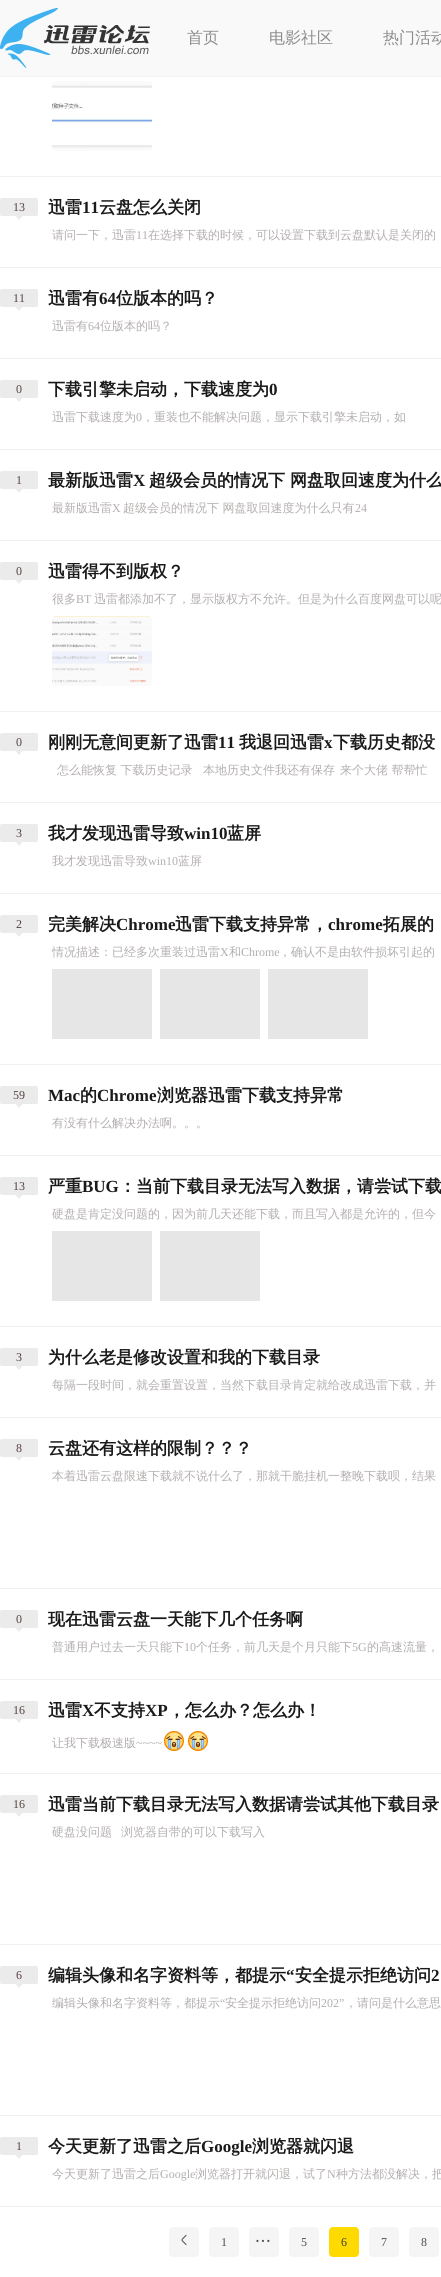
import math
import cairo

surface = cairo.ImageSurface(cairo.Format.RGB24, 441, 2277)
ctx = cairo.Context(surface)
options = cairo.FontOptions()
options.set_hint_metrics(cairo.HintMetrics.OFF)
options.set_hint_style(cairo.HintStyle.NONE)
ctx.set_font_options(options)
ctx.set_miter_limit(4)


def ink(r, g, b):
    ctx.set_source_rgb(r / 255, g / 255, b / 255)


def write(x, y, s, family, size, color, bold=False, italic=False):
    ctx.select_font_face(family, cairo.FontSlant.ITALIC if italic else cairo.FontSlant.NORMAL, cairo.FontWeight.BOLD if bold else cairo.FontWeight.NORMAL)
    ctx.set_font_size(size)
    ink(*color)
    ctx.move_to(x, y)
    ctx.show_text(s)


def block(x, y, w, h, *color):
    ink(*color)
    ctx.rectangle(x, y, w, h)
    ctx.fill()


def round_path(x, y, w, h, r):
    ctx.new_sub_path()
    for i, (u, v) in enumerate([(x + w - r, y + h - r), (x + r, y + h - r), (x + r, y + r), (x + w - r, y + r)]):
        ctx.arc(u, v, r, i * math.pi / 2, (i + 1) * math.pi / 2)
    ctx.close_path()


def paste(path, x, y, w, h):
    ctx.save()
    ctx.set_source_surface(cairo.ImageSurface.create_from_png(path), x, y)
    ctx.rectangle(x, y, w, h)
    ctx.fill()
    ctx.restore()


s1 = dict(family="WenQuanYi Zen Hei Medium", size=16, color=(140, 140, 140))
s2 = dict(family="Liberation Serif", size=12, color=(87, 65, 65))
s3 = dict(family="WenQuanYi Zen Hei", size=17, color=(26, 26, 26), bold=True)
s4 = dict(family="Liberation Serif", size=17, color=(26, 26, 26), bold=True)
s5 = dict(family="WenQuanYi Zen Hei Medium", size=12, color=(179, 174, 174))
s6 = dict(family="Liberation Serif", size=12, color=(179, 174, 174))
s7 = dict(family="Liberation Serif", size=12, color=(77, 77, 77))
s8 = dict(family="Liberation Serif", size=12, color=(60, 63, 66))

ink(255, 255, 255)
ctx.paint()
block(0, 0, 441, 76, 249, 249, 249)
block(0, 76, 441, 1, 242, 242, 242)
paste("pic1.png", 0, 8, 150, 60)
write(187, 43, "首页", **s1)
write(269, 43, "电影社区", **s1)
write(383, 43, "热门活动", **s1)
block(0, 176, 441, 1, 240, 240, 240)
paste("pic2.png", 52, 81, 100, 70)
block(0, 267, 441, 1, 240, 240, 240)
ink(235, 235, 235)
round_path(0, 198, 38, 18, 2)
ctx.fill()
write(13, 211, "13", **s2)
ink(235, 235, 235)
ctx.new_path()
ctx.move_to(14, 214)
ctx.line_to(24, 214)
ctx.line_to(19, 220)
ctx.close_path()
ctx.fill()
write(48, 213, "迅雷", **s3)
write(82, 213, "11", **s4)
write(99, 213, "云盘怎么关闭", **s3)
write(52, 239, "请问一下，迅雷", **s5)
write(136, 239, "11", **s6)
write(148, 239, "在选择下载的时候，可以设置下载到云盘默认是关闭的", **s5)
block(0, 358, 441, 1, 240, 240, 240)
ink(235, 235, 235)
round_path(0, 289, 38, 18, 2)
ctx.fill()
write(13, 302, "11", **s2)
ink(235, 235, 235)
ctx.new_path()
ctx.move_to(14, 305)
ctx.line_to(24, 305)
ctx.line_to(19, 311)
ctx.close_path()
ctx.fill()
write(48, 304, "迅雷有", **s3)
write(99, 304, "64", **s4)
write(116, 304, "位版本的吗？", **s3)
write(52, 330, "迅雷有", **s5)
write(88, 330, "64", **s6)
write(100, 330, "位版本的吗？", **s5)
block(0, 449, 441, 1, 240, 240, 240)
ink(235, 235, 235)
round_path(0, 380, 38, 18, 2)
ctx.fill()
write(16, 393, "0", **s2)
ink(235, 235, 235)
ctx.new_path()
ctx.move_to(14, 396)
ctx.line_to(24, 396)
ctx.line_to(19, 402)
ctx.close_path()
ctx.fill()
write(48, 395, "下载引擎未启动，下载速度为", **s3)
write(269, 395, "0", **s4)
write(52, 421, "迅雷下载速度为", **s5)
write(136, 421, "0", **s6)
write(142, 421, "，重装也不能解决问题，显示下载引擎未启动，如", **s5)
block(0, 540, 441, 1, 240, 240, 240)
ink(235, 235, 235)
round_path(0, 471, 38, 18, 2)
ctx.fill()
write(16, 484, "1", **s2)
ink(235, 235, 235)
ctx.new_path()
ctx.move_to(14, 487)
ctx.line_to(24, 487)
ctx.line_to(19, 493)
ctx.close_path()
ctx.fill()
write(48, 486, "最新版迅雷", **s3)
write(133, 486, "X", **s4)
write(149, 486, "超级会员的情况下 网盘取回速度为什么", **s3)
write(52, 512, "最新版迅雷", **s5)
write(112, 512, "X", **s6)
write(123, 512, "超级会员的情况下 网盘取回速度为什么只有", **s5)
write(355, 512, "24", **s6)
block(0, 711, 441, 1, 240, 240, 240)
ink(235, 235, 235)
round_path(0, 562, 38, 18, 2)
ctx.fill()
write(16, 575, "0", **s2)
ink(235, 235, 235)
ctx.new_path()
ctx.move_to(14, 578)
ctx.line_to(24, 578)
ctx.line_to(19, 584)
ctx.close_path()
ctx.fill()
write(48, 577, "迅雷得不到版权？", **s3)
write(52, 603, "很多", **s5)
write(76, 603, "BT", **s6)
write(94, 603, "迅雷都添加不了，显示版权方不允许。但是为什么百度网盘可以呢", **s5)
paste("pic3.png", 52, 616, 100, 70)
block(0, 802, 441, 1, 240, 240, 240)
ink(235, 235, 235)
round_path(0, 733, 38, 18, 2)
ctx.fill()
write(16, 746, "0", **s2)
ink(235, 235, 235)
ctx.new_path()
ctx.move_to(14, 749)
ctx.line_to(24, 749)
ctx.line_to(19, 755)
ctx.close_path()
ctx.fill()
write(48, 748, "刚刚无意间更新了迅雷", **s3)
write(218, 748, "11", **s4)
write(239, 748, "我退回迅雷", **s3)
write(324, 748, "x", **s4)
write(333, 748, "下载历史都没", **s3)
write(57, 774, "怎么能恢复 下载历史记录", **s5)
write(203, 774, "本地历史文件我还有保存", **s5)
write(340, 774, "来个大佬 帮帮忙", **s5)
block(0, 893, 441, 1, 240, 240, 240)
ink(235, 235, 235)
round_path(0, 824, 38, 18, 2)
ctx.fill()
write(16, 837, "3", **s2)
ink(235, 235, 235)
ctx.new_path()
ctx.move_to(14, 840)
ctx.line_to(24, 840)
ctx.line_to(19, 846)
ctx.close_path()
ctx.fill()
write(48, 839, "我才发现迅雷导致", **s3)
write(184, 839, "win10", **s4)
write(227, 839, "蓝屏", **s3)
write(52, 865, "我才发现迅雷导致", **s5)
write(148, 865, "win10", **s6)
write(178, 865, "蓝屏", **s5)
block(0, 1064, 441, 1, 240, 240, 240)
ink(235, 235, 235)
round_path(0, 915, 38, 18, 2)
ctx.fill()
write(16, 928, "2", **s2)
ink(235, 235, 235)
ctx.new_path()
ctx.move_to(14, 931)
ctx.line_to(24, 931)
ctx.line_to(19, 937)
ctx.close_path()
ctx.fill()
write(48, 930, "完美解决", **s3)
write(116, 930, "Chrome", **s4)
write(175, 930, "迅雷下载支持异常，", **s3)
write(328, 930, "chrome", **s4)
write(383, 930, "拓展的", **s3)
write(52, 956, "情况描述：已经多次重装过迅雷", **s5)
write(220, 956, "X", **s6)
write(229, 956, "和", **s5)
write(241, 956, "Chrome", **s6)
write(279, 956, "，确认不是由软件损坏引起的", **s5)
block(52, 969, 100, 70, 230, 230, 230)
block(160, 969, 100, 70, 230, 230, 230)
block(268, 969, 100, 70, 230, 230, 230)
block(0, 1155, 441, 1, 240, 240, 240)
ink(235, 235, 235)
round_path(0, 1086, 38, 18, 2)
ctx.fill()
write(13, 1099, "59", **s2)
ink(235, 235, 235)
ctx.new_path()
ctx.move_to(14, 1102)
ctx.line_to(24, 1102)
ctx.line_to(19, 1108)
ctx.close_path()
ctx.fill()
write(48, 1101, "Mac", **s4)
write(80, 1101, "的", **s3)
write(97, 1101, "Chrome", **s4)
write(157, 1101, "浏览器迅雷下载支持异常", **s3)
write(52, 1127, "有没有什么解决办法啊。。。", **s5)
block(0, 1326, 441, 1, 240, 240, 240)
ink(235, 235, 235)
round_path(0, 1177, 38, 18, 2)
ctx.fill()
write(13, 1190, "13", **s2)
ink(235, 235, 235)
ctx.new_path()
ctx.move_to(14, 1193)
ctx.line_to(24, 1193)
ctx.line_to(19, 1199)
ctx.close_path()
ctx.fill()
write(48, 1192, "严重", **s3)
write(82, 1192, "BUG", **s4)
write(119, 1192, "：当前下载目录无法写入数据，请尝试下载", **s3)
write(52, 1218, "硬盘是肯定没问题的，因为前几天还能下载，而且写入都是允许的，但今", **s5)
block(52, 1231, 100, 70, 230, 230, 230)
block(160, 1231, 100, 70, 230, 230, 230)
block(0, 1417, 441, 1, 240, 240, 240)
ink(235, 235, 235)
round_path(0, 1348, 38, 18, 2)
ctx.fill()
write(16, 1361, "3", **s2)
ink(235, 235, 235)
ctx.new_path()
ctx.move_to(14, 1364)
ctx.line_to(24, 1364)
ctx.line_to(19, 1370)
ctx.close_path()
ctx.fill()
write(48, 1363, "为什么老是修改设置和我的下载目录", **s3)
write(52, 1389, "每隔一段时间，就会重置设置，当然下载目录肯定就给改成迅雷下载，并", **s5)
block(0, 1588, 441, 1, 240, 240, 240)
ink(235, 235, 235)
round_path(0, 1439, 38, 18, 2)
ctx.fill()
write(16, 1452, "8", **s2)
ink(235, 235, 235)
ctx.new_path()
ctx.move_to(14, 1455)
ctx.line_to(24, 1455)
ctx.line_to(19, 1461)
ctx.close_path()
ctx.fill()
write(48, 1454, "云盘还有这样的限制？？？", **s3)
write(52, 1480, "本着迅雷云盘限速下载就不说什么了，那就干脆挂机一整晚下载呗，结果", **s5)
block(0, 1679, 441, 1, 240, 240, 240)
ink(235, 235, 235)
round_path(0, 1610, 38, 18, 2)
ctx.fill()
write(16, 1623, "0", **s2)
ink(235, 235, 235)
ctx.new_path()
ctx.move_to(14, 1626)
ctx.line_to(24, 1626)
ctx.line_to(19, 1632)
ctx.close_path()
ctx.fill()
write(48, 1625, "现在迅雷云盘一天能下几个任务啊", **s3)
write(52, 1651, "普通用户过去一天只能下", **s5)
write(184, 1651, "10", **s6)
write(196, 1651, "个任务，前几天是个月只能下", **s5)
write(352, 1651, "5G", **s6)
write(367, 1651, "的高速流量，", **s5)
block(0, 1773, 441, 1, 240, 240, 240)
ink(235, 235, 235)
round_path(0, 1701, 38, 18, 2)
ctx.fill()
write(13, 1714, "16", **s2)
ink(235, 235, 235)
ctx.new_path()
ctx.move_to(14, 1717)
ctx.line_to(24, 1717)
ctx.line_to(19, 1723)
ctx.close_path()
ctx.fill()
write(48, 1716, "迅雷", **s3)
write(82, 1716, "X", **s4)
write(94, 1716, "不支持", **s3)
write(145, 1716, "XP", **s4)
write(168, 1716, "，怎么办？怎么办！", **s3)
write(52, 1747, "让我下载极速版", **s5)
write(136, 1747, "~~~~", **s6)
paste("pic4.png", 164, 1731, 20, 20)
paste("pic4.png", 188, 1731, 20, 20)
block(0, 1944, 441, 1, 240, 240, 240)
ink(235, 235, 235)
round_path(0, 1795, 38, 18, 2)
ctx.fill()
write(13, 1808, "16", **s2)
ink(235, 235, 235)
ctx.new_path()
ctx.move_to(14, 1811)
ctx.line_to(24, 1811)
ctx.line_to(19, 1817)
ctx.close_path()
ctx.fill()
write(48, 1810, "迅雷当前下载目录无法写入数据请尝试其他下载目录", **s3)
write(52, 1836, "硬盘没问题", **s5)
write(121, 1836, "浏览器自带的可以下载写入", **s5)
block(0, 2115, 441, 1, 240, 240, 240)
ink(235, 235, 235)
round_path(0, 1966, 38, 18, 2)
ctx.fill()
write(16, 1979, "6", **s2)
ink(235, 235, 235)
ctx.new_path()
ctx.move_to(14, 1982)
ctx.line_to(24, 1982)
ctx.line_to(19, 1988)
ctx.close_path()
ctx.fill()
write(48, 1981, "编辑头像和名字资料等，都提示", **s3)
write(286, 1981, "“", **s4)
write(295, 1981, "安全提示拒绝访问", **s3)
write(431, 1981, "2", **s4)
write(52, 2007, "编辑头像和名字资料等，都提示", **s5)
write(220, 2007, "“", **s6)
write(225, 2007, "安全提示拒绝访问", **s5)
write(321, 2007, "202”", **s6)
write(345, 2007, "，请问是什么意思", **s5)
block(0, 2206, 441, 1, 240, 240, 240)
ink(235, 235, 235)
round_path(0, 2137, 38, 18, 2)
ctx.fill()
write(16, 2150, "1", **s2)
ink(235, 235, 235)
ctx.new_path()
ctx.move_to(14, 2153)
ctx.line_to(24, 2153)
ctx.line_to(19, 2159)
ctx.close_path()
ctx.fill()
write(48, 2152, "今天更新了迅雷之后", **s3)
write(201, 2152, "Google", **s4)
write(252, 2152, "浏览器就闪退", **s3)
write(52, 2178, "今天更新了迅雷之后", **s5)
write(160, 2178, "Google", **s6)
write(195, 2178, "浏览器打开就闪退，试了", **s5)
write(327, 2178, "N", **s6)
write(336, 2178, "种方法都没解决，把", **s5)
ink(245, 245, 245)
round_path(169, 2227, 30, 30, 4)
ctx.fill()
paste("pic5.png", 181, 2234, 6, 11)
round_path(209, 2227, 30, 30, 4)
ctx.fill()
write(221, 2246, "1", **s7)
ink(245, 245, 245)
round_path(249, 2227, 30, 30, 4)
ctx.fill()
paste("pic6.png", 256, 2239, 14, 3)
round_path(289, 2227, 30, 30, 4)
ctx.fill()
write(301, 2246, "5", **s7)
ink(255, 218, 0)
round_path(329, 2227, 30, 30, 4)
ctx.fill()
write(341, 2246, "6", **s8)
ink(245, 245, 245)
round_path(369, 2227, 30, 30, 4)
ctx.fill()
write(381, 2246, "7", **s7)
ink(245, 245, 245)
round_path(409, 2227, 30, 30, 4)
ctx.fill()
write(421, 2246, "8", **s7)
surface.write_to_png("screenshot.png")
